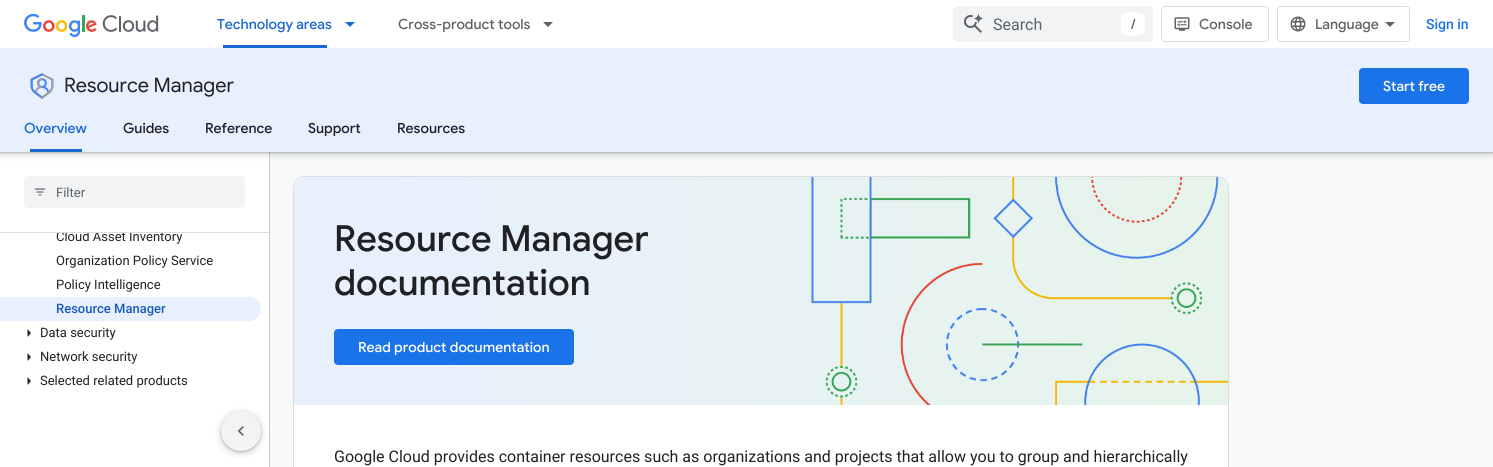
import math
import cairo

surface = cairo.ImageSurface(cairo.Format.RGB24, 1493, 467)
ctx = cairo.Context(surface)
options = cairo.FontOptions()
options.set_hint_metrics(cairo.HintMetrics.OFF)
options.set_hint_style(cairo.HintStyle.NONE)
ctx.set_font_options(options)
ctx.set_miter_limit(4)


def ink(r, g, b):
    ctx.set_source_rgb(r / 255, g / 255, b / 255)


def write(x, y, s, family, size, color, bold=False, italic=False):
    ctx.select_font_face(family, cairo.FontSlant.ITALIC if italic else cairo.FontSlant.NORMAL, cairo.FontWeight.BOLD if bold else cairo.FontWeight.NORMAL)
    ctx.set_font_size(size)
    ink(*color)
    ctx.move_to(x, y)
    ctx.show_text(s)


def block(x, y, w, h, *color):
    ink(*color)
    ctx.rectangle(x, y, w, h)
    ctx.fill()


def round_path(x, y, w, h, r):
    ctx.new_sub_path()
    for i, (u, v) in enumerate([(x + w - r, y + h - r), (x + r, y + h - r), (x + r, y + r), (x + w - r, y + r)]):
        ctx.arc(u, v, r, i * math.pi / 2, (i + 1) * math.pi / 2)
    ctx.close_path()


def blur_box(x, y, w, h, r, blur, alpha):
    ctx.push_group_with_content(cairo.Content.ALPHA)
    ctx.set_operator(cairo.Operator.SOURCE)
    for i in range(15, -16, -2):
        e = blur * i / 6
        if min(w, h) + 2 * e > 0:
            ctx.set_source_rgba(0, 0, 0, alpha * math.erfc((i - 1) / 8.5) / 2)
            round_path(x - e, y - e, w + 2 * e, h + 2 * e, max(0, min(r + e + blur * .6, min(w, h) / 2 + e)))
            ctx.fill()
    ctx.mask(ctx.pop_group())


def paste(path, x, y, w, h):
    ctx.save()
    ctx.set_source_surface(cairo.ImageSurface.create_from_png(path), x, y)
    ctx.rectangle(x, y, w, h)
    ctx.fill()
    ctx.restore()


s1 = dict(family="Roboto", size=13, color=(32, 33, 36))
s2 = dict(family="Google Sans Medium", size=14, color=(25, 103, 210))
s3 = dict(family="Google Sans Medium", size=14, color=(95, 99, 104))
s4 = dict(family="Roboto", size=16, color=(95, 99, 104))
s5 = dict(family="Roboto Medium", size=14, color=(26, 115, 232))
s6 = dict(family="Google Sans", size=20, color=(32, 33, 36))
s7 = dict(family="Google Sans Medium", size=14, color=(255, 255, 255))
s8 = dict(family="Google Sans Medium", size=14, color=(32, 33, 36))
s9 = dict(family="Roboto", size=13, color=(95, 99, 104))
s10 = dict(family="Roboto Medium", size=13, color=(24, 90, 188))
s11 = dict(family="Google Sans Medium", size=36, color=(32, 33, 36))
s12 = dict(family="Roboto", size=16, color=(32, 33, 36))

ink(248, 249, 250)
ctx.paint()
ink(60, 64, 67)
blur_box(0, 1, 269, 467, 0, 0.5, 1)
block(0, 233, 269, 234, 255, 255, 255)
write(56, 241, "Cloud Asset Inventory", **s1)
block(0, 152, 269, 80, 255, 255, 255)
ink(60, 64, 67)
blur_box(-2, 48, 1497, 108, 0, 3, 0.15)
blur_box(0, 49, 1493, 104, 0, 1, 0.3)
block(0, 0, 1493, 48, 255, 255, 255)
paste("pic1.png", 24, 13, 135, 25)
write(217, 29, "Technology areas", **s2)
block(223, 45, 104, 3, 25, 103, 210)
ctx.new_path()
ctx.move_to(345, 22)
ctx.line_to(355, 22)
ctx.line_to(350, 27)
ctx.close_path()
ctx.fill()
write(398, 29, "Cross-product tools", **s3)
ctx.new_path()
ctx.move_to(543, 22)
ctx.line_to(553, 22)
ctx.line_to(548, 27)
ctx.close_path()
ctx.fill()
ink(241, 243, 244)
round_path(953, 6, 200, 36, 4)
ctx.fill()
paste("pic2.png", 964, 13, 20, 20)
write(993, 30, "Search", **s4)
ink(255, 255, 255)
round_path(1121, 12, 24, 24, 8)
ctx.fill()
write(1131, 29, "/", **s3)
round_path(1161.5, 6.5, 107, 35, 3.5)
ink(218, 220, 224)
ctx.set_line_width(1)
ctx.stroke()
paste("pic3.png", 1174, 17, 16, 14)
write(1199, 29, "Console", **s3)
round_path(1277.5, 6.5, 132, 35, 3.5)
ink(218, 220, 224)
ctx.stroke()
paste("pic4.png", 1290, 16, 16, 16)
write(1315, 29, "Language", **s3)
ctx.new_path()
ctx.move_to(1390, 27)
ctx.line_to(1385, 22)
ctx.line_to(1395, 22)
ctx.close_path()
ctx.fill()
write(1426, 29, "Sign in", **s5)
block(0, 48, 1493, 104, 232, 240, 254)
paste("pic5.png", 30, 73, 24, 26)
write(64, 92, "Resource Manager", **s6)
ink(26, 115, 232)
round_path(1359, 68, 110, 36, 4)
ctx.fill()
write(1383, 91, "Start free", **s7)
write(24, 133, "Overview", **s2)
block(30, 149, 52, 3, 25, 103, 210)
write(123, 133, "Guides", **s8)
write(205, 133, "Reference", **s8)
write(308, 133, "Support", **s8)
write(397, 133, "Resources", **s8)
block(0, 232, 269, 1, 218, 220, 224)
ink(241, 243, 244)
round_path(24, 176, 221, 32, 4)
ctx.fill()
paste("pic6.png", 34, 188, 12, 8)
write(56, 197, "Filter", **s9)
write(56, 265, "Organization Policy Service", **s1)
write(56, 289, "Policy Intelligence", **s1)
ink(232, 240, 254)
ctx.new_path()
ctx.move_to(0, 297)
ctx.line_to(249, 297)
ctx.curve_to(255.5, 297, 261, 302.5, 261, 309)
ctx.curve_to(261, 315.5, 255.5, 321, 249, 321)
ctx.line_to(0, 321)
ctx.close_path()
ctx.fill()
write(56, 313, "Resource Manager", **s10)
ink(32, 33, 36)
ctx.new_path()
ctx.move_to(27.5, 337)
ctx.line_to(27.5, 329)
ctx.line_to(31, 333)
ctx.close_path()
ctx.fill()
write(40, 337, "Data security", **s1)
ctx.new_path()
ctx.move_to(27.5, 361)
ctx.line_to(27.5, 353)
ctx.line_to(31, 357)
ctx.close_path()
ctx.fill()
write(40, 361, "Network security", **s1)
ctx.new_path()
ctx.move_to(27.5, 385)
ctx.line_to(27.5, 377)
ctx.line_to(31, 381)
ctx.close_path()
ctx.fill()
write(40, 385, "Selected related products", **s1)
ink(60, 64, 67)
blur_box(219, 411, 44, 44, 22, 3, 0.15)
blur_box(221, 412, 40, 40, 20, 1, 0.3)
ink(241, 243, 244)
ctx.arc(241, 431, 20, 0, 2 * math.pi)
ctx.fill()
paste("pic7.png", 237, 426, 7, 10)
ink(255, 255, 255)
round_path(293.5, 176.5, 935, 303, 11.5)
ctx.fill_preserve()
ink(218, 220, 224)
ctx.stroke()
paste("pic8.png", 294, 177, 934, 228)
write(334, 251, "Resource Manager", **s11)
write(334, 295, "documentation", **s11)
ink(26, 115, 232)
round_path(334, 329, 240, 36, 4)
ctx.fill()
write(358, 352, "Read product documentation", **s7)
write(334, 462, "Google Cloud provides container resources such as organizations and projects that allow you to group and hierarchically", **s12)
surface.write_to_png("screenshot.png")
